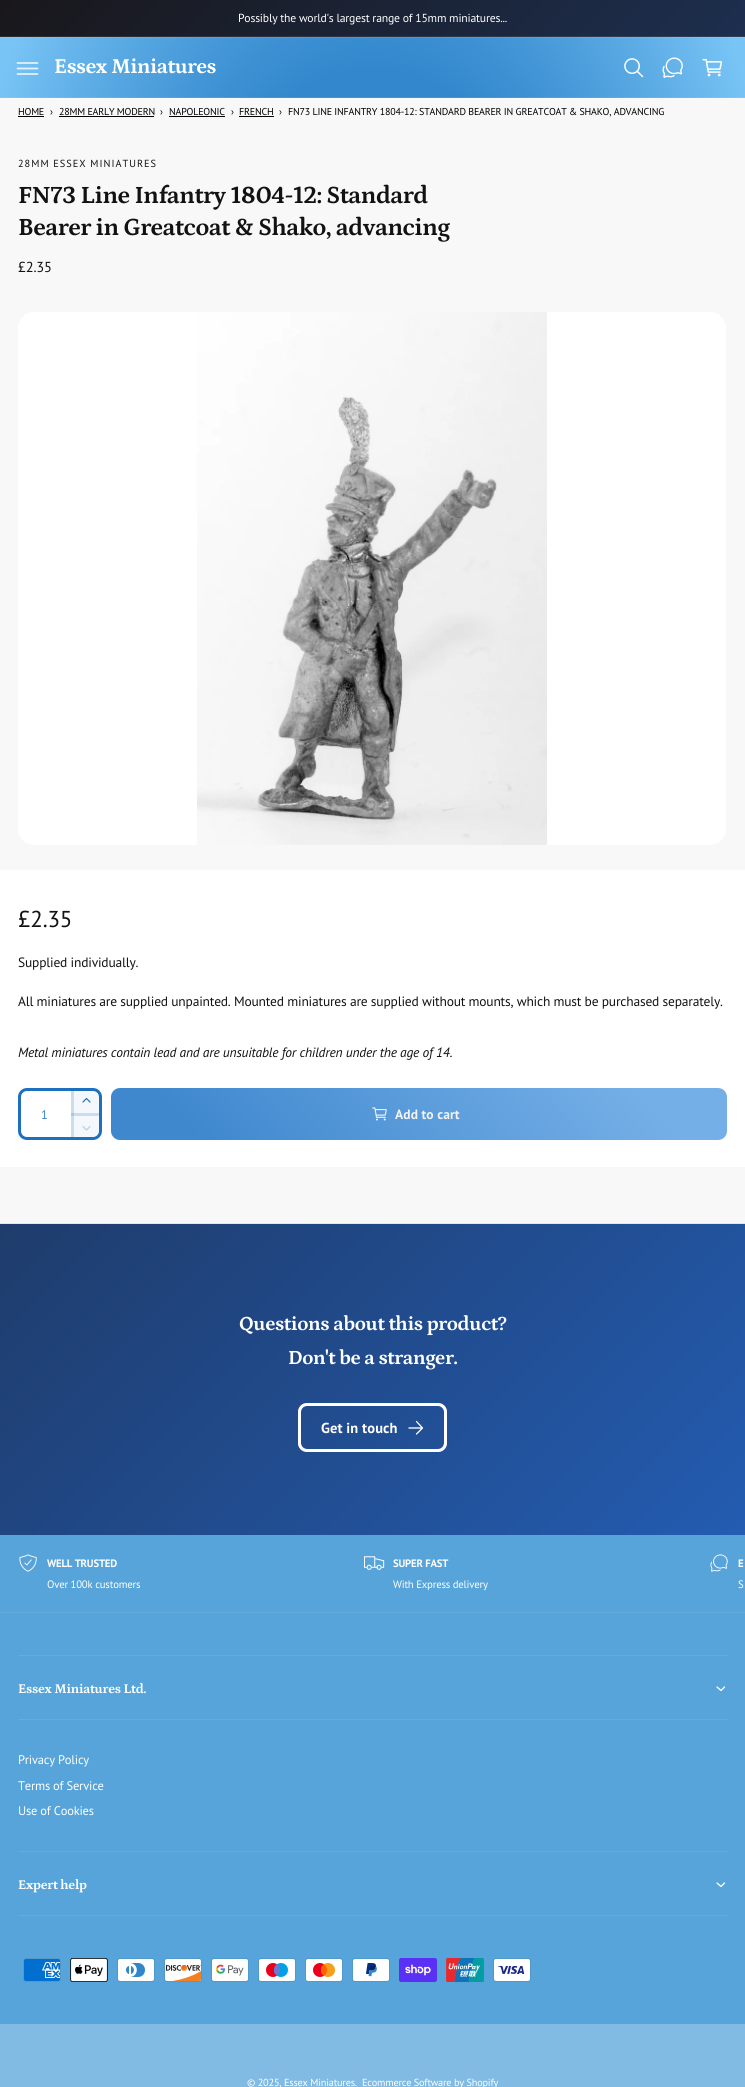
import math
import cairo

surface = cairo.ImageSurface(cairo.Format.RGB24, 745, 2087)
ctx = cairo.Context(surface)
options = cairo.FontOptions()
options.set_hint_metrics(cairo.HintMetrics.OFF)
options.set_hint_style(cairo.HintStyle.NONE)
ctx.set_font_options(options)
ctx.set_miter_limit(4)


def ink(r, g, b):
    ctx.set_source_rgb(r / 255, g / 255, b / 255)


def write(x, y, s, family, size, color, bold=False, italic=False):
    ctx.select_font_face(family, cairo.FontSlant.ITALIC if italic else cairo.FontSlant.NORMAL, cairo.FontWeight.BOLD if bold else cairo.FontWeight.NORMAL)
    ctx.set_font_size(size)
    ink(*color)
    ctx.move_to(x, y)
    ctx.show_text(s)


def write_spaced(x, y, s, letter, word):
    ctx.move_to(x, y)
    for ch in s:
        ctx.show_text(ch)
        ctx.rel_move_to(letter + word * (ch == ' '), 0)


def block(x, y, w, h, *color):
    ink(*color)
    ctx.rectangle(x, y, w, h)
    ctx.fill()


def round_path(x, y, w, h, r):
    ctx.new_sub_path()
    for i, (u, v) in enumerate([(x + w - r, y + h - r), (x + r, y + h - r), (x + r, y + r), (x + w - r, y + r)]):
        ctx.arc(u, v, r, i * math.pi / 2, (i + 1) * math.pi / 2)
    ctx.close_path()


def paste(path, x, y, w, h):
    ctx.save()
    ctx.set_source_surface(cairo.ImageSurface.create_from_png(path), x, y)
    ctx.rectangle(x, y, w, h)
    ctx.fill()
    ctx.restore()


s1 = dict(family="PT Sans", size=12.5, color=(62, 133, 200))

ink(248, 248, 248)
ctx.paint()
gradient = cairo.LinearGradient(-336, 336, 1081, 1752)
gradient.add_color_stop_rgba(0, 0.098, 0.09, 0.106, 1)
gradient.add_color_stop_rgba(1, 0.149, 0.427, 0.839, 1)
ctx.set_source(gradient)
ctx.rectangle(0, 0, 745, 36)
ctx.fill()
gradient = cairo.LinearGradient(-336, 336, 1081, 1752)
gradient.add_color_stop_rgba(0, 0.169, 0.165, 0.176, 1)
gradient.add_color_stop_rgba(1, 0.216, 0.475, 0.851, 1)
ctx.set_source(gradient)
ctx.rectangle(0, 36, 745, 1)
ctx.fill()
ctx.select_font_face("PT Sans")
ctx.set_font_size(11.7)
ink(255, 255, 255)
write_spaced(238, 22, "Possibly the world's largest range of 15mm miniatures...", -0.2, 0)
gradient = cairo.RadialGradient(0, 0, 0, 0, 0, 1)
gradient.set_matrix(cairo.Matrix(1 / 527, 0, 0, 1 / 1476, -1 * 373 / 527, -1 * 1044 / 1476))
gradient.add_color_stop_rgba(0.66, 0.2, 0.533, 0.804, 1)
gradient.add_color_stop_rgba(0.96, 0.471, 0.769, 0.961, 1)
ctx.set_source(gradient)
ctx.rectangle(0, 38, 745, 59)
ctx.fill()
gradient = cairo.RadialGradient(0, 0, 0, 0, 0, 1)
gradient.set_matrix(cairo.Matrix(1 / 527, 0, 0, 1 / 1476, -1 * 373 / 527, -1 * 1044 / 1476))
gradient.add_color_stop_rgba(0.66, 0.263, 0.573, 0.82, 1)
gradient.add_color_stop_rgba(0.96, 0.514, 0.788, 0.965, 1)
ctx.set_source(gradient)
ctx.rectangle(0, 97, 745, 1)
ctx.fill()
ctx.rectangle(0, 37, 745, 1)
ctx.fill()
ctx.new_path()
ctx.move_to(17.5, 63)
ctx.line_to(37.5, 63)
ctx.move_to(17.5, 68.5)
ctx.line_to(37.5, 68.5)
ctx.move_to(17.5, 74)
ctx.line_to(37.5, 74)
ctx.set_source_rgba(1, 1, 1, 0.8)
ctx.set_line_width(1.8)
ctx.set_line_cap(cairo.LineCap.ROUND)
ctx.stroke()
ctx.select_font_face("Petrona", cairo.FontSlant.NORMAL, cairo.FontWeight.BOLD)
ctx.set_font_size(21.5)
ink(255, 255, 255)
write_spaced(54, 73, "Essex Miniatures", -0.5, 0)
paste("pic1.png", 624, 58, 20, 20)
paste("pic2.png", 662, 57, 21, 21)
paste("pic3.png", 702, 58, 21, 19)
ctx.select_font_face("PT Sans")
ctx.set_font_size(10)
ink(0, 0, 0)
write_spaced(18, 115, "HOME", -0.2, 0)
block(18, 116, 26, 1, 0, 0, 0)
write_spaced(50, 115, "›", -0.2, 0)
write_spaced(59, 115, "28MM EARLY MODERN", -0.2, 0)
block(59, 116, 95, 1, 0, 0, 0)
write_spaced(160, 115, "›", -0.2, 0)
write_spaced(169, 115, "NAPOLEONIC", -0.2, 0)
block(169, 116, 56, 1, 0, 0, 0)
write_spaced(231, 115, "›", -0.2, 0)
write_spaced(239, 115, "FRENCH", -0.2, 0)
block(239, 116, 35, 1, 0, 0, 0)
write_spaced(279, 115, "›", -0.2, 0)
write_spaced(288, 115, "FN73 LINE INFANTRY 1804-12: STANDARD BEARER IN GREATCOAT & SHAKO, ADVANCING", -0.2, 0)
ctx.set_font_size(10.3)
ink(18, 18, 18)
write_spaced(18, 167, "28MM ESSEX MINIATURES", 1, 0)
ctx.select_font_face("Petrona", cairo.FontSlant.NORMAL, cairo.FontWeight.BOLD)
ctx.set_font_size(25)
write_spaced(18, 203, "FN73 Line Infantry 1804-12: Standard", -0.55, 0)
write_spaced(18, 235, "Bearer in Greatcoat & Shako, advancing", -0.55, 0)
ctx.select_font_face("PT Sans")
ctx.set_font_size(14.5)
write_spaced(18, 272, "£2.35", -0.2, 0)
ink(255, 255, 255)
round_path(18, 312, 708, 533, 16)
ctx.fill()
paste("pic4.png", 197, 312, 350, 533)
block(0, 870, 745, 297, 255, 255, 255)
ctx.set_font_size(23)
ink(18, 18, 18)
write_spaced(18, 927, "£2.35", -0.2, 0)
ctx.set_font_size(13.5)
write_spaced(18, 967, "Supplied individually.", -0.2, 0)
write_spaced(18, 1006, "All miniatures are supplied unpainted. Mounted miniatures are supplied without mounts, which must be purchased separately.", -0.2, 0)
ctx.select_font_face("PT Sans", cairo.FontSlant.ITALIC)
write_spaced(18, 1057, "Metal miniatures contain lead and are unsuitable for children under the age of 14.", -0.2, 0)
ink(244, 248, 252)
ctx.new_path()
ctx.move_to(71, 1088)
ctx.line_to(93, 1088)
ctx.curve_to(96.5, 1088, 99, 1090.5, 99, 1094)
ctx.line_to(99, 1116)
ctx.line_to(71, 1116)
ctx.close_path()
ctx.fill()
block(71, 1088, 3, 28, 201, 221, 240)
block(71, 1113, 28, 3, 201, 221, 240)
block(71, 1113, 3, 3, 166, 199, 230)
ctx.new_path()
ctx.move_to(90, 1102)
ctx.line_to(86.5, 1098.5)
ctx.line_to(83, 1102)
ink(28, 112, 190)
ctx.set_line_width(1.2)
ctx.set_line_join(cairo.LineJoin.ROUND)
ctx.stroke()
ink(244, 248, 252)
ctx.new_path()
ctx.move_to(71, 1116)
ctx.line_to(99, 1116)
ctx.line_to(99, 1134)
ctx.curve_to(99, 1137.5, 96.5, 1140, 93, 1140)
ctx.line_to(71, 1140)
ctx.close_path()
ctx.fill()
block(71, 1116, 3, 24, 201, 221, 240)
ctx.new_path()
ctx.move_to(83, 1126.5)
ctx.line_to(86.5, 1130)
ctx.line_to(90, 1126.5)
ink(179, 207, 233)
ctx.stroke()
round_path(19.5, 1089.5, 81, 49, 7.5)
ink(255, 255, 255)
ctx.set_line_width(3)
ctx.set_line_cap(cairo.LineCap.BUTT)
ctx.set_line_join(cairo.LineJoin.MITER)
ctx.stroke()
round_path(19.5, 1089.5, 81, 49, 7.5)
ink(28, 112, 190)
ctx.stroke()
write(41, 1119, "1", **s1)
gradient = cairo.LinearGradient(247, 1280, 591, 948)
gradient.add_color_stop_rgba(0.13, 0.247, 0.533, 0.808, 1)
gradient.add_color_stop_rgba(0.86, 0.459, 0.686, 0.906, 1)
ctx.set_source(gradient)
round_path(111, 1088, 616, 52, 9)
ctx.fill()
paste("pic5.png", 372, 1107, 15, 14)
ctx.select_font_face("PT Sans", cairo.FontSlant.NORMAL, cairo.FontWeight.BOLD)
ctx.set_font_size(13.5)
ink(243, 243, 243)
write_spaced(395, 1119, "Add to cart", 0.1, 0)
block(0, 1223, 745, 1, 230, 230, 230)
gradient = cairo.LinearGradient(-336, 336, 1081, 1752)
gradient.add_color_stop_rgba(0, 0.098, 0.09, 0.106, 1)
gradient.add_color_stop_rgba(1, 0.149, 0.427, 0.839, 1)
ctx.set_source(gradient)
ctx.rectangle(0, 1224, 745, 311)
ctx.fill()
ctx.select_font_face("Petrona", cairo.FontSlant.NORMAL, cairo.FontWeight.BOLD)
ctx.set_font_size(20.25)
ink(255, 255, 255)
write_spaced(239, 1330, "Questions about this product?", -0.4, 0)
write_spaced(288, 1364, "Don't be a stranger.", -0.4, 0)
ctx.new_path()
ctx.move_to(416.5, 1421.5)
ctx.line_to(422.5, 1428)
ctx.line_to(416.5, 1434)
ctx.move_to(421.5, 1428)
ctx.line_to(409, 1428)
ctx.set_line_width(1.3)
ctx.set_line_cap(cairo.LineCap.ROUND)
ctx.set_line_join(cairo.LineJoin.ROUND)
ctx.stroke()
round_path(299.5, 1404.5, 146, 46, 7.5)
ink(140, 115, 236)
ctx.set_line_width(3)
ctx.set_line_cap(cairo.LineCap.BUTT)
ctx.set_line_join(cairo.LineJoin.MITER)
ctx.stroke()
round_path(299.5, 1404.5, 146, 46, 7.5)
ink(255, 255, 255)
ctx.stroke()
ctx.select_font_face("PT Sans", cairo.FontSlant.NORMAL, cairo.FontWeight.BOLD)
ctx.set_font_size(14.5)
write_spaced(321, 1433, "Get in touch", 0.1, 0)
block(0, 1535, 745, 77, 87, 164, 218)
block(0, 1612, 745, 1, 100, 171, 221)
paste("pic6.png", 19, 1554, 18, 18)
ctx.set_font_size(10.75)
ink(255, 255, 255)
write_spaced(47, 1567, "WELL TRUSTED", -0.2, 0)
ctx.select_font_face("PT Sans")
write_spaced(47, 1588, "Over 100k customers", -0.2, 0)
paste("pic7.png", 364, 1556, 21, 14)
ctx.select_font_face("PT Sans", cairo.FontSlant.NORMAL, cairo.FontWeight.BOLD)
write_spaced(393, 1567, "SUPER FAST", -0.2, 0)
ctx.select_font_face("PT Sans")
write_spaced(393, 1588, "With Express delivery", -0.2, 0)
paste("pic8.png", 710, 1554, 18, 18)
ctx.select_font_face("PT Sans", cairo.FontSlant.NORMAL, cairo.FontWeight.BOLD)
write_spaced(738, 1567, "E", -0.2, 0)
ctx.select_font_face("PT Sans")
write_spaced(738, 1588, "S", -0.2, 0)
block(0, 1613, 745, 411, 87, 164, 218)
block(18, 1655, 709, 1, 100, 171, 221)
block(18, 1719, 709, 1, 100, 171, 221)
ctx.select_font_face("Petrona", cairo.FontSlant.NORMAL, cairo.FontWeight.BOLD)
ctx.set_font_size(13.5)
ink(255, 255, 255)
write_spaced(18, 1693, "Essex Miniatures Ltd.", -0.25, 0)
ctx.new_path()
ctx.move_to(717, 1687)
ctx.line_to(721, 1690.5)
ctx.line_to(724.5, 1687)
ctx.set_line_width(1.3)
ctx.set_line_cap(cairo.LineCap.ROUND)
ctx.set_line_join(cairo.LineJoin.ROUND)
ctx.stroke()
ctx.select_font_face("PT Sans")
ctx.set_font_size(12.5)
write_spaced(18, 1764, "Privacy Policy", -0.2, 0)
write_spaced(18, 1790, "Terms of Service", -0.2, 0)
write_spaced(18, 1815, "Use of Cookies", -0.2, 0)
block(18, 1851, 709, 1, 100, 171, 221)
block(18, 1915, 709, 1, 100, 171, 221)
ctx.select_font_face("Petrona", cairo.FontSlant.NORMAL, cairo.FontWeight.BOLD)
ctx.set_font_size(13.5)
ink(255, 255, 255)
write_spaced(18, 1889, "Expert help", -0.25, 0)
ctx.new_path()
ctx.move_to(717, 1883)
ctx.line_to(721, 1886.5)
ctx.line_to(724.5, 1883)
ctx.stroke()
paste("pic9.png", 23, 1958, 38, 24)
paste("pic10.png", 70, 1958, 38, 24)
paste("pic11.png", 117, 1958, 38, 24)
paste("pic12.png", 164, 1958, 38, 24)
paste("pic13.png", 211, 1958, 38, 24)
paste("pic14.png", 258, 1958, 38, 24)
paste("pic15.png", 305, 1958, 38, 24)
paste("pic16.png", 352, 1958, 38, 24)
paste("pic17.png", 399, 1958, 38, 24)
paste("pic18.png", 446, 1958, 38, 24)
paste("pic19.png", 493, 1958, 38, 24)
block(0, 2024, 745, 63, 129, 187, 227)
ctx.select_font_face("PT Sans")
ctx.set_font_size(10.3)
ink(255, 255, 255)
write_spaced(247, 2086, "© 2025, Essex Miniatures.", -0.2, 0)
write_spaced(362, 2086, "Ecommerce Software by Shopify", -0.2, 0)
surface.write_to_png("screenshot.png")
